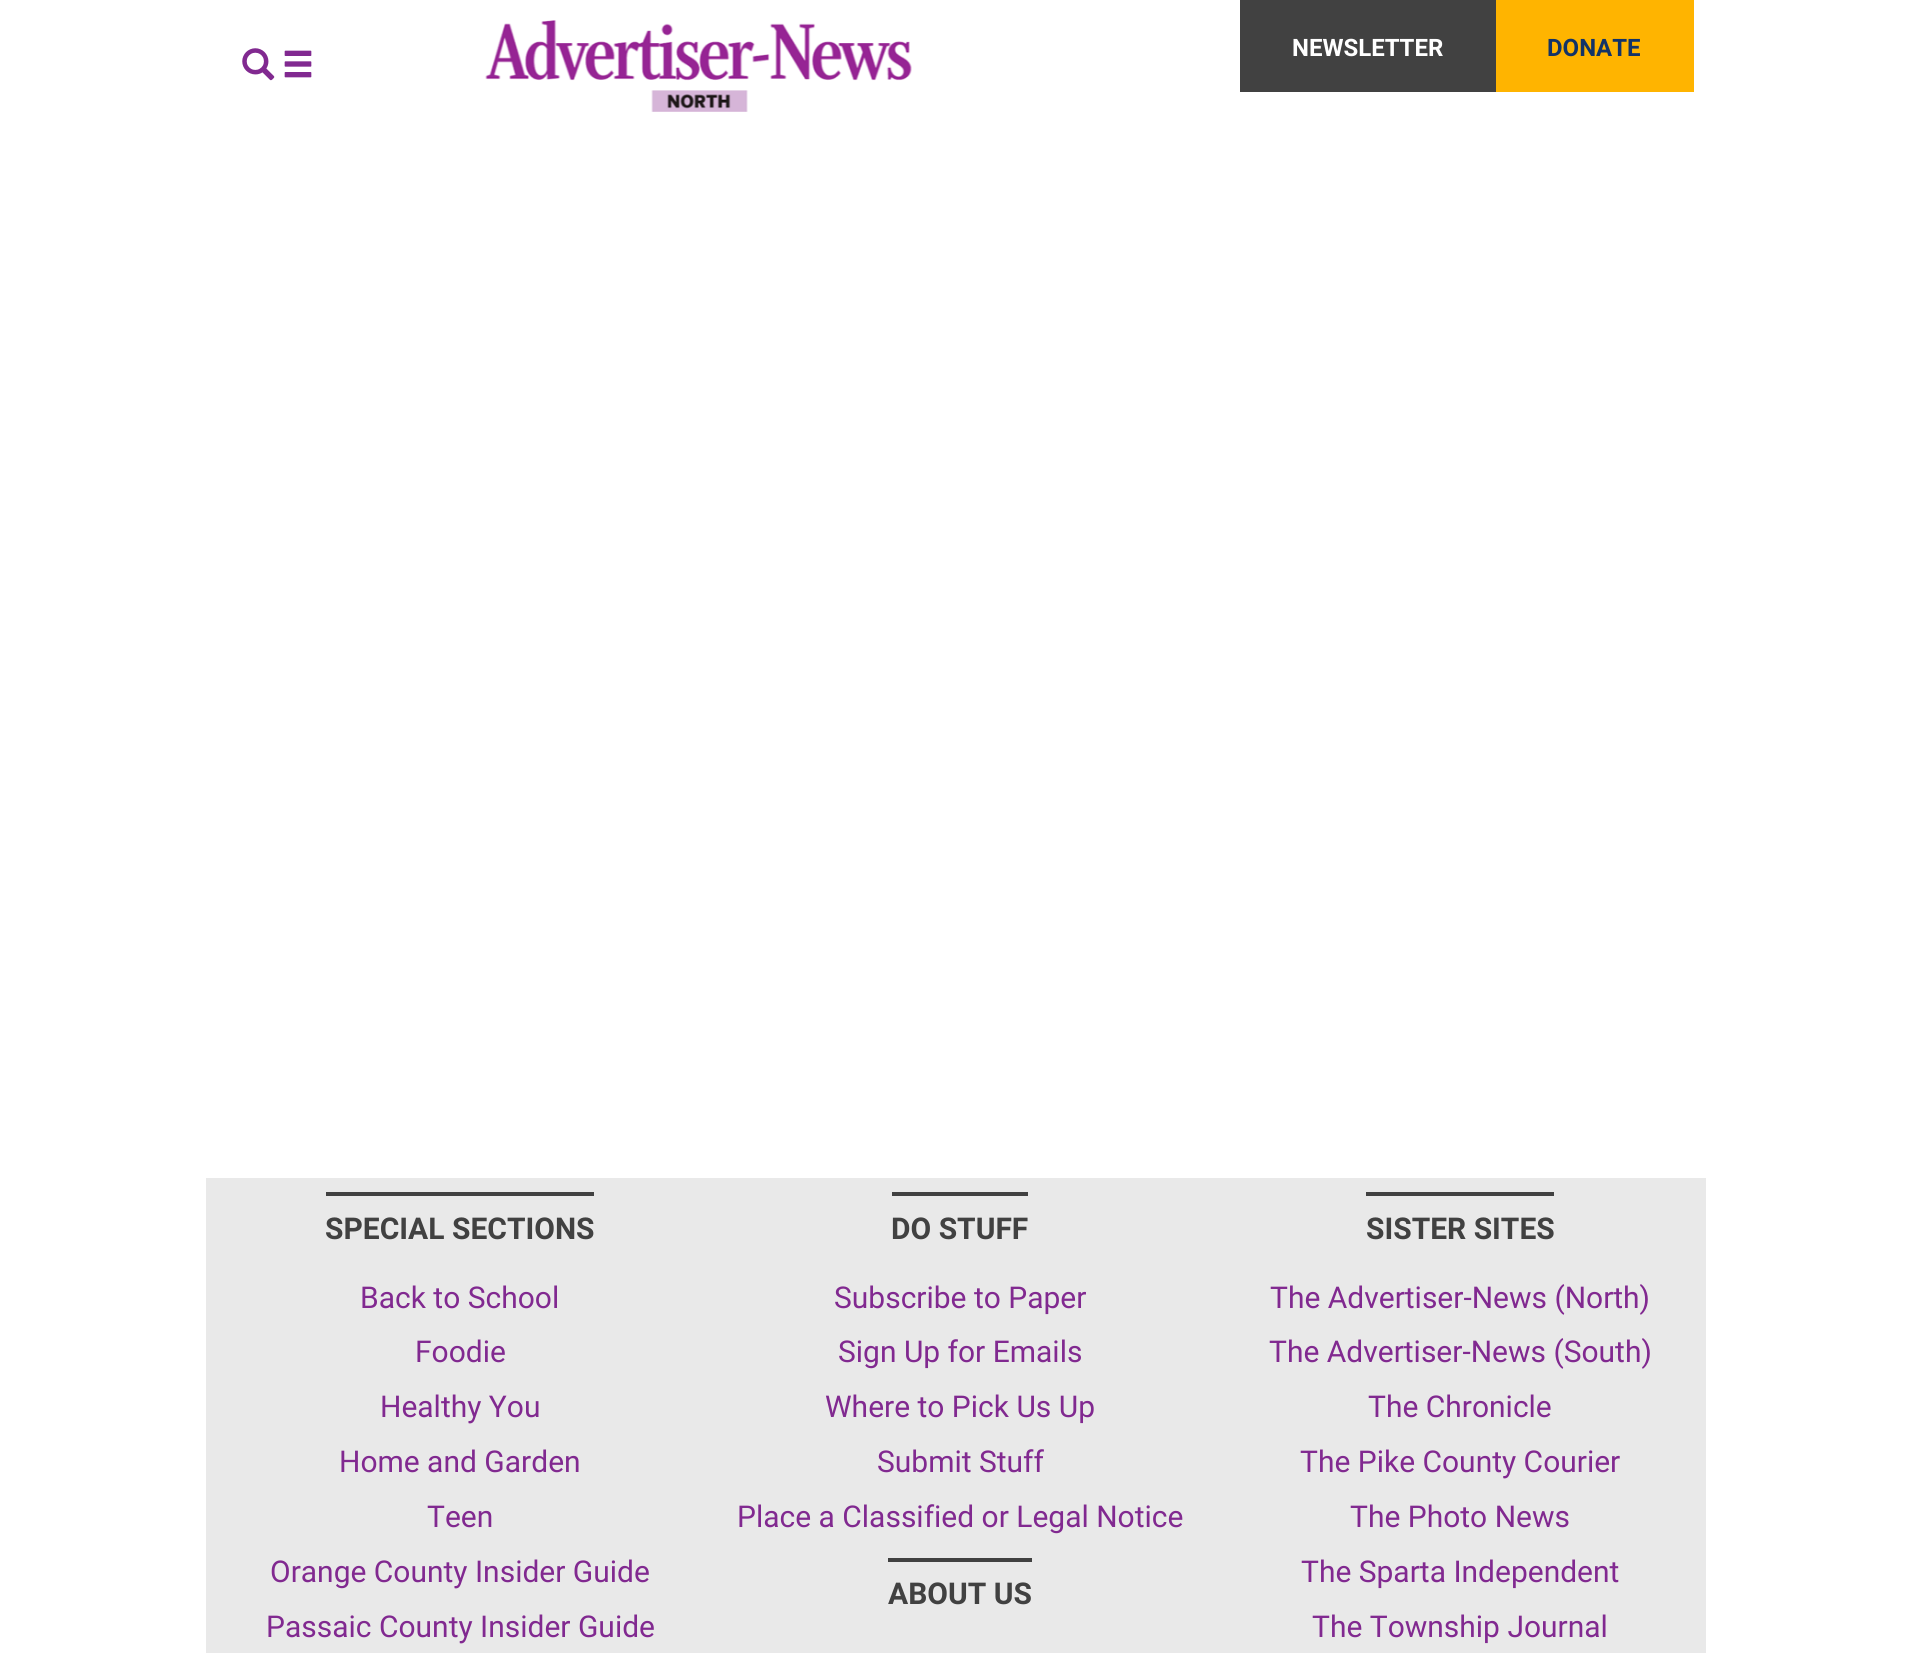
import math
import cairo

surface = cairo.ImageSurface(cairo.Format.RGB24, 1909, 1653)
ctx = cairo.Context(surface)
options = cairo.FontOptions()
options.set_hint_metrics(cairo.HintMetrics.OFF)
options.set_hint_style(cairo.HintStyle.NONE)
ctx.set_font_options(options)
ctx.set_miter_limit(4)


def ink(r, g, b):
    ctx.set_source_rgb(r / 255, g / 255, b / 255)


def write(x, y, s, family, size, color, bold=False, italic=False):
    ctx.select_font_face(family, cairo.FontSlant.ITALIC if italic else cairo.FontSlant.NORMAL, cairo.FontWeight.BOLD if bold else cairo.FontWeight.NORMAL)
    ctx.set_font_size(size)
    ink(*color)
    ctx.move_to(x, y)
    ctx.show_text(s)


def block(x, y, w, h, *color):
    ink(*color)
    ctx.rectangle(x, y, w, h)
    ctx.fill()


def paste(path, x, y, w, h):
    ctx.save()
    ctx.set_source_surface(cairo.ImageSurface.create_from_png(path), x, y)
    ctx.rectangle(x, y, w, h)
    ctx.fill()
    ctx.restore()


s1 = dict(family="Roboto", size=24, color=(255, 255, 255), bold=True)
s2 = dict(family="Roboto", size=24, color=(19, 51, 103), bold=True)
s3 = dict(family="Roboto", size=30, color=(65, 65, 65), bold=True)
s4 = dict(family="Roboto", size=30, color=(129, 41, 144))

ink(255, 255, 255)
ctx.paint()
paste("pic1.png", 242, 48, 70, 33)
paste("pic2.png", 485, 20, 427, 92)
block(1240, 0, 256, 92, 65, 65, 65)
write(1292, 56, "NEWSLETTER", **s1)
block(1496, 0, 198, 92, 255, 180, 0)
write(1547, 56, "DONATE", **s2)
block(206, 1178, 1500, 475, 233, 233, 233)
block(326, 1192, 268, 4, 65, 65, 65)
write(325, 1239, "SPECIAL SECTIONS", **s3)
write(360, 1308, "Back to School", **s4)
write(415, 1362, "Foodie", **s4)
write(380, 1417, "Healthy You", **s4)
write(339, 1472, "Home and Garden", **s4)
write(427, 1527, "Teen", **s4)
write(270, 1582, "Orange County Insider Guide", **s4)
write(266, 1637, "Passaic County Insider Guide", **s4)
block(892, 1192, 136, 4, 65, 65, 65)
write(891, 1239, "DO STUFF", **s3)
write(834, 1308, "Subscribe to Paper", **s4)
write(838, 1362, "Sign Up for Emails", **s4)
write(825, 1417, "Where to Pick Us Up", **s4)
write(877, 1472, "Submit Stuff", **s4)
write(737, 1527, "Place a Classified or Legal Notice", **s4)
block(888, 1558, 144, 4, 65, 65, 65)
write(888, 1604, "ABOUT US", **s3)
block(1366, 1192, 188, 4, 65, 65, 65)
write(1366, 1239, "SISTER SITES", **s3)
write(1270, 1308, "The Advertiser-News (North)", **s4)
write(1269, 1362, "The Advertiser-News (South)", **s4)
write(1368, 1417, "The Chronicle", **s4)
write(1300, 1472, "The Pike County Courier", **s4)
write(1350, 1527, "The Photo News", **s4)
write(1301, 1582, "The Sparta Independent", **s4)
write(1312, 1637, "The Township Journal", **s4)
surface.write_to_png("screenshot.png")
